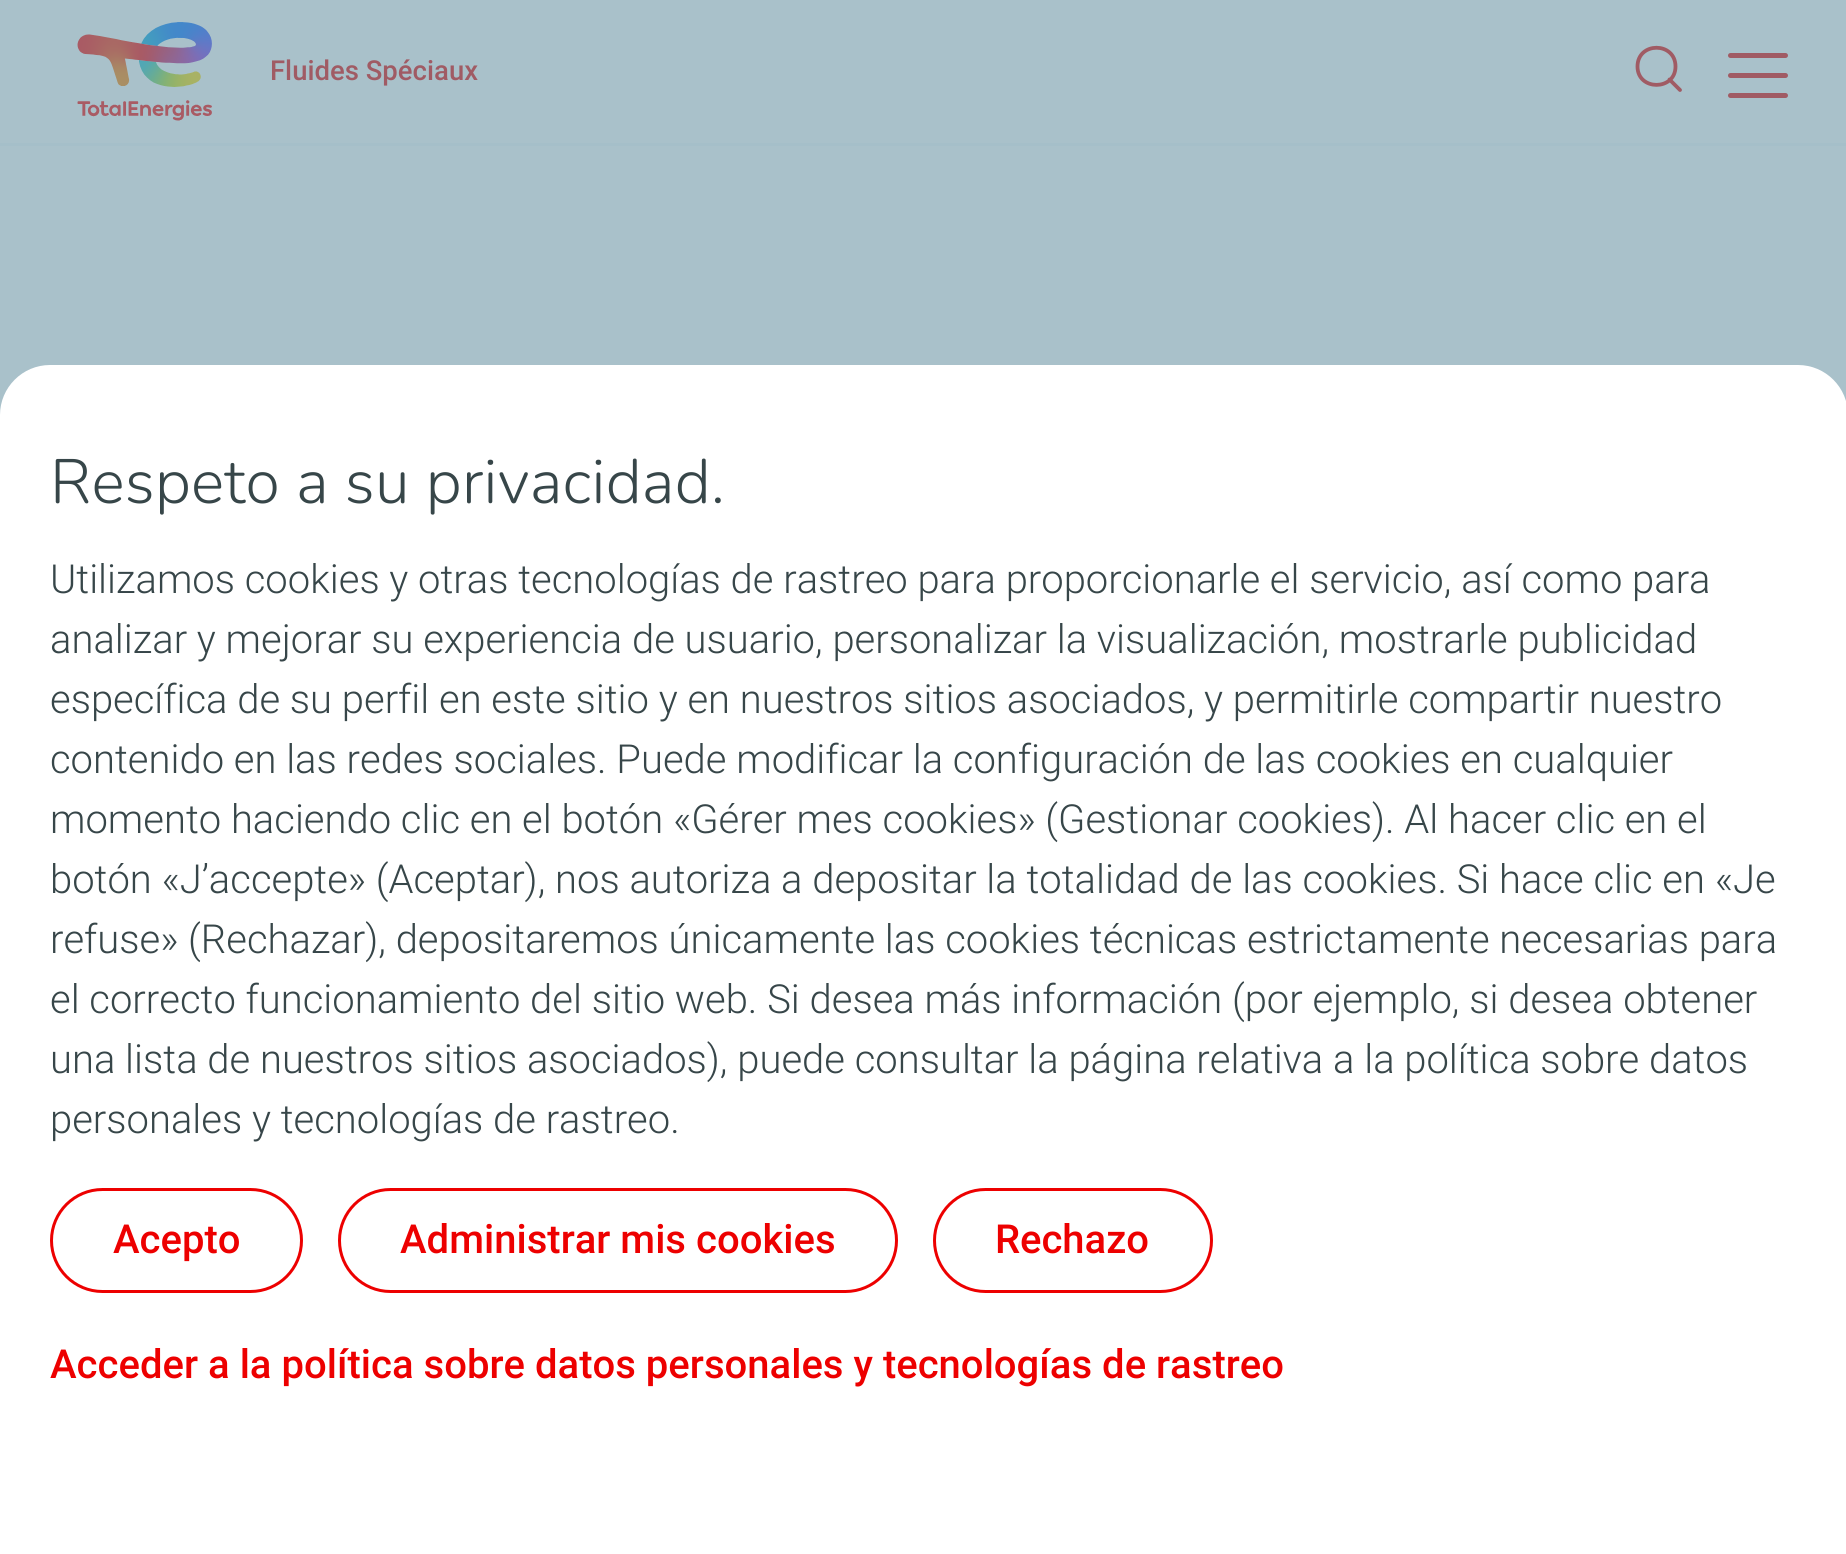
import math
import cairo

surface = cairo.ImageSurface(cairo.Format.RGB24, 1846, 1554)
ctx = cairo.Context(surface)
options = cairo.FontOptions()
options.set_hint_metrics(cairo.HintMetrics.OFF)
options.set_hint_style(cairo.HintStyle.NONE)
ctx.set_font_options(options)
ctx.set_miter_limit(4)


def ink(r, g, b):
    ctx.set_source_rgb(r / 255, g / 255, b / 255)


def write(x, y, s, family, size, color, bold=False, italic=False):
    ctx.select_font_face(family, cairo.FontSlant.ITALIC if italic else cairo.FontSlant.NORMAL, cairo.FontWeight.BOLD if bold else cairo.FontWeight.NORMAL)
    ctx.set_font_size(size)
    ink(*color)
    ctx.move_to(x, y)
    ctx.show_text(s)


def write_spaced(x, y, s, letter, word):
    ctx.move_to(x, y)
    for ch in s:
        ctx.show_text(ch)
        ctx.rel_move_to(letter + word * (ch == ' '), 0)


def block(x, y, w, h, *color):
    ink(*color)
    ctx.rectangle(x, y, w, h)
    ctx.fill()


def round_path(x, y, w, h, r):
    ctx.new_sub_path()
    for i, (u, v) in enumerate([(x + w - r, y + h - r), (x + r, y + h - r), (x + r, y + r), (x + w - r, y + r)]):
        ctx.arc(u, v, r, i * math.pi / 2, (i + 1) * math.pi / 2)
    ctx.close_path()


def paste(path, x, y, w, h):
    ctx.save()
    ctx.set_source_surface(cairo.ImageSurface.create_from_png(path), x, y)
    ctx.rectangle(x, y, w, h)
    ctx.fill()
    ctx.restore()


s1 = dict(family="Roboto Medium", size=27.5, color=(160, 91, 100))
s2 = dict(family="Roboto Light", size=40, color=(55, 70, 73))
s3 = dict(family="Roboto Medium", size=40, color=(237, 0, 0))

ink(169, 193, 202)
ctx.paint()
block(0, 143, 1846, 3, 165, 191, 201)
paste("pic1.png", 77, 22, 135, 99)
write(270, 80, "Fluides Spéciaux", **s1)
ctx.new_path()
ctx.move_to(1680, 90)
ctx.line_to(1669.5, 79.5)
ctx.move_to(1675.5, 66.5)
ctx.curve_to(1675.5, 91, 1637.5, 91, 1637.5, 66.5)
ctx.curve_to(1637.5, 41.5, 1675.5, 41.5, 1675.5, 66.5)
ctx.close_path()
ctx.set_line_width(3.8)
ctx.set_line_cap(cairo.LineCap.ROUND)
ctx.set_line_join(cairo.LineJoin.ROUND)
ctx.stroke()
round_path(1728, 53, 60, 5, 2.5)
ctx.fill()
round_path(1728, 73, 60, 5, 2.5)
ctx.fill()
round_path(1728, 93, 60, 5, 2.5)
ctx.fill()
ink(255, 255, 255)
ctx.new_path()
ctx.move_to(50, 365)
ctx.line_to(1798, 365)
ctx.curve_to(1825.5, 365, 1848, 387.5, 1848, 415)
ctx.line_to(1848, 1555)
ctx.line_to(0, 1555)
ctx.line_to(0, 415)
ctx.curve_to(0, 387.5, 22.5, 365, 50, 365)
ctx.close_path()
ctx.fill()
ctx.select_font_face("Nunito Light")
ctx.set_font_size(62.5)
ink(55, 70, 73)
write_spaced(50, 503, "Respeto a su privacidad.", 0.25, 0)
write(50, 593, "Utilizamos cookies y otras tecnologías de rastreo para proporcionarle el servicio, así como para", **s2)
write(50, 653, "analizar y mejorar su experiencia de usuario, personalizar la visualización, mostrarle publicidad", **s2)
write(50, 713, "específica de su perfil en este sitio y en nuestros sitios asociados, y permitirle compartir nuestro", **s2)
write(50, 773, "contenido en las redes sociales. Puede modificar la configuración de las cookies en cualquier", **s2)
write(50, 833, "momento haciendo clic en el botón «Gérer mes cookies» (Gestionar cookies). Al hacer clic en el", **s2)
write(50, 893, "botón «J’accepte» (Aceptar), nos autoriza a depositar la totalidad de las cookies. Si hace clic en «Je", **s2)
write(50, 953, "refuse» (Rechazar), depositaremos únicamente las cookies técnicas estrictamente necesarias para", **s2)
write(50, 1013, "el correcto funcionamiento del sitio web. Si desea más información (por ejemplo, si desea obtener", **s2)
write(50, 1073, "una lista de nuestros sitios asociados), puede consultar la página relativa a la política sobre datos", **s2)
write(50, 1133, "personales y tecnologías de rastreo.", **s2)
round_path(51.5, 1189.5, 250, 102, 51)
ink(237, 0, 0)
ctx.set_line_width(3)
ctx.set_line_cap(cairo.LineCap.BUTT)
ctx.set_line_join(cairo.LineJoin.MITER)
ctx.stroke()
write(113, 1253, "Acepto", **s3)
round_path(339.5, 1189.5, 557, 102, 51)
ctx.stroke()
write(400, 1253, "Administrar mis cookies", **s3)
round_path(934.5, 1189.5, 277, 102, 51)
ctx.stroke()
write(995, 1253, "Rechazo", **s3)
write(50, 1378, "Acceder a la política sobre datos personales y tecnologías de rastreo", **s3)
surface.write_to_png("screenshot.png")
